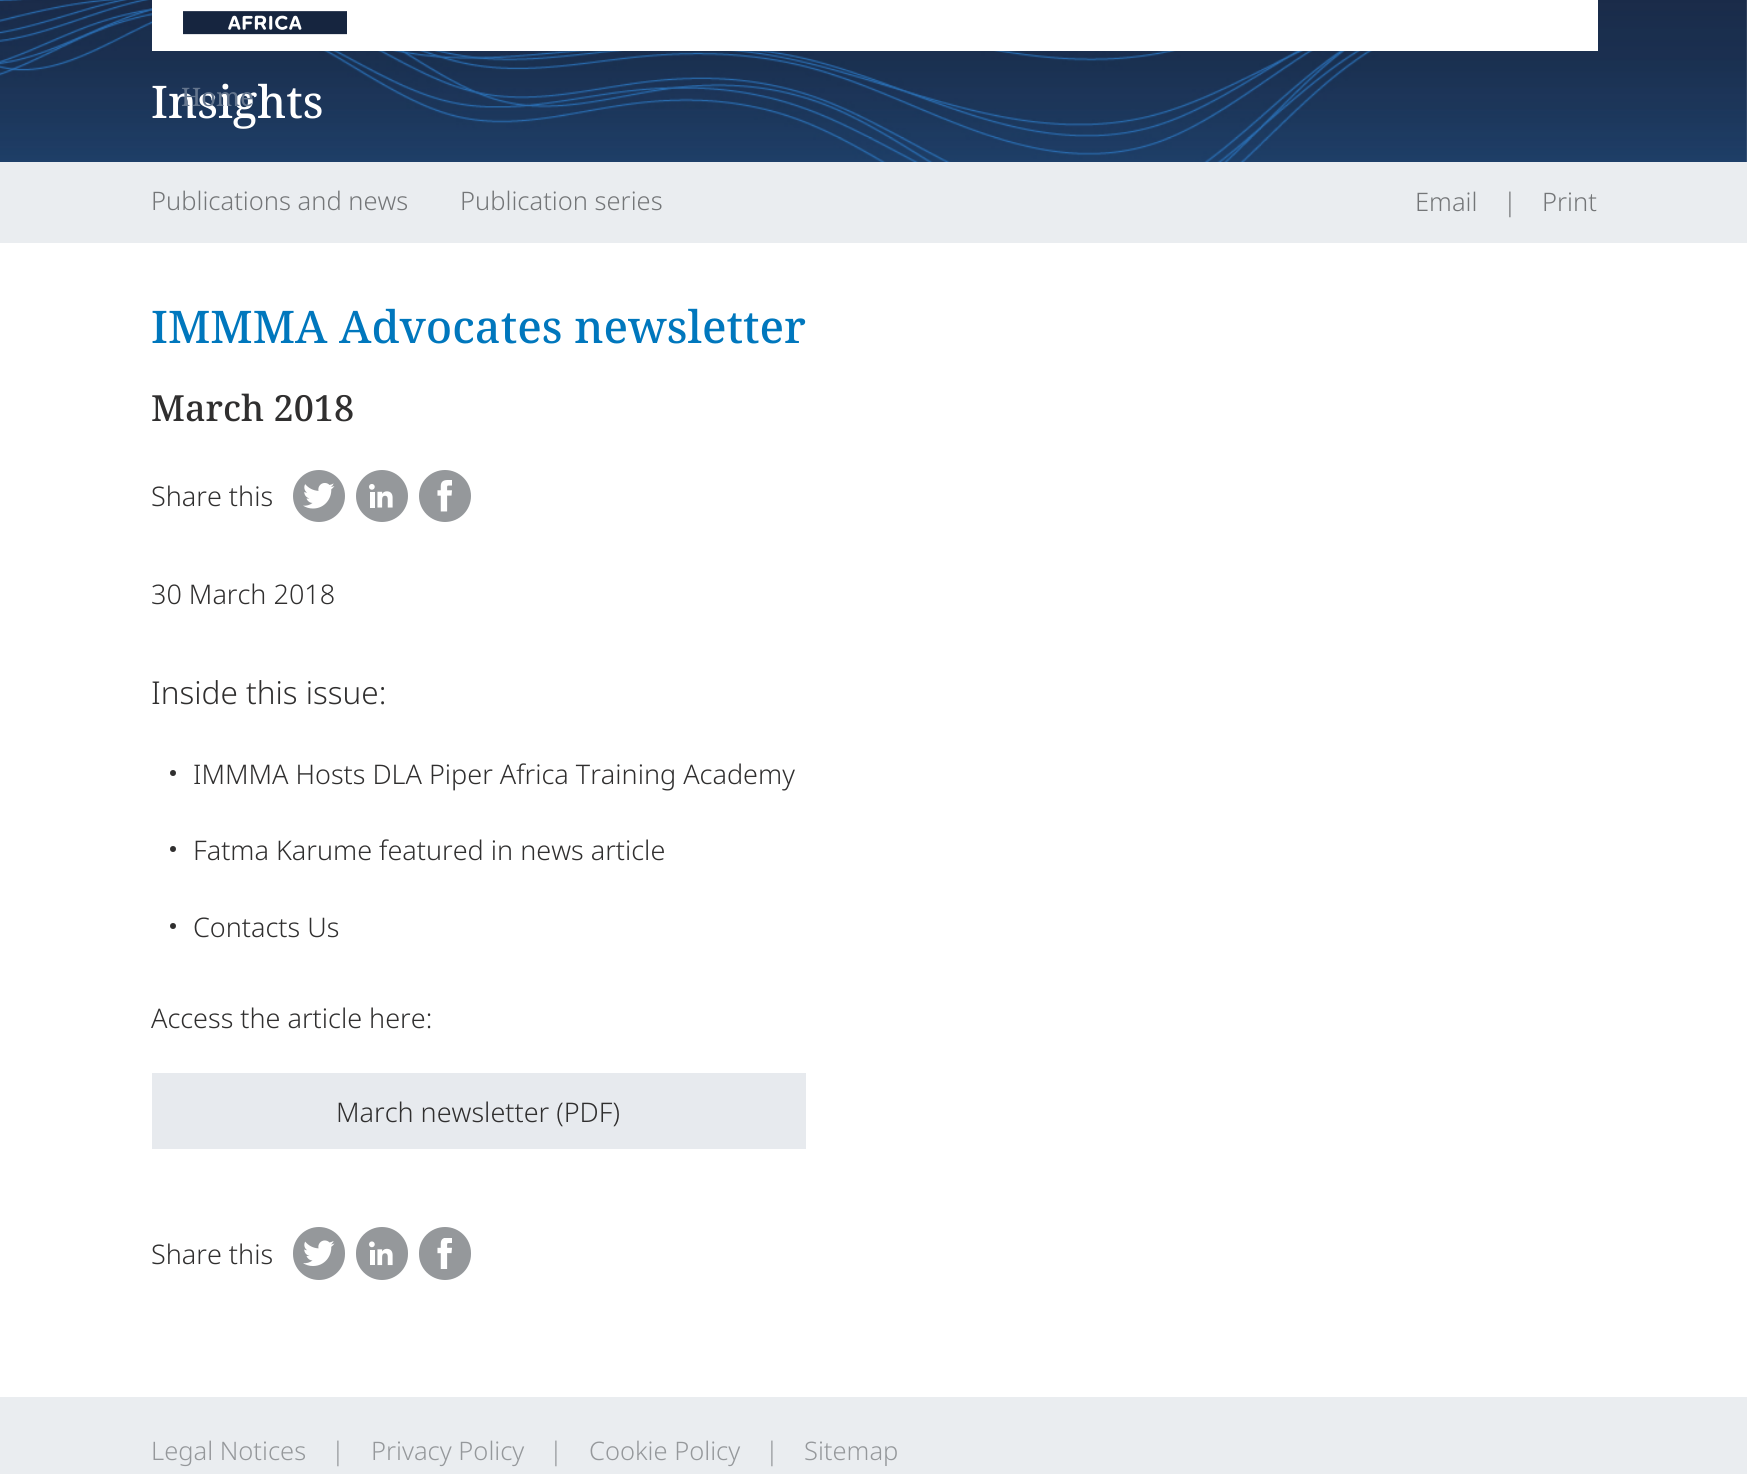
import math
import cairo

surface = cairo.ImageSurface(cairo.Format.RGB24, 1747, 1474)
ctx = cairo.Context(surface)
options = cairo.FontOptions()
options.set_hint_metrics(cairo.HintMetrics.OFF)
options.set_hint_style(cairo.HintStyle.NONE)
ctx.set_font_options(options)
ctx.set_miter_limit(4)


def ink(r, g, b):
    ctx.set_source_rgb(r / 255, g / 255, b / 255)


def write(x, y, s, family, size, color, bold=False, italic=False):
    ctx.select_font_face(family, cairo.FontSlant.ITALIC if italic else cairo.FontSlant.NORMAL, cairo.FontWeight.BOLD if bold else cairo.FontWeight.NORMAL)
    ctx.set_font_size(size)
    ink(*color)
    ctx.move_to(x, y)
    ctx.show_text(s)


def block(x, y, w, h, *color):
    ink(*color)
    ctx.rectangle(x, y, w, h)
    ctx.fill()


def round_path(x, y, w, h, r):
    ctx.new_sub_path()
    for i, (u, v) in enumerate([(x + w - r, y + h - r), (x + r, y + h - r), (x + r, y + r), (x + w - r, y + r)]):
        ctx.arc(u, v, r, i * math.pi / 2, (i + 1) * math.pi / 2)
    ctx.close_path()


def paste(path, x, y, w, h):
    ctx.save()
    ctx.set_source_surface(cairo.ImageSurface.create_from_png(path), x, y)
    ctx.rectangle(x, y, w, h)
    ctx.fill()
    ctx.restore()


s1 = dict(family="Noto Serif Medium", size=45, color=(255, 255, 255))
s2 = dict(family="Noto Serif", size=25.5, color=(101, 118, 142))
s3 = dict(family="Noto Sans Light", size=25.5, color=(116, 118, 120))
s4 = dict(family="Noto Serif Medium", size=45, color=(0, 119, 189))
s5 = dict(family="Noto Serif Medium", size=36, color=(48, 47, 47))
s6 = dict(family="Noto Sans Light", size=27, color=(48, 47, 47))
s7 = dict(family="Noto Sans Light", size=31.5, color=(48, 47, 47))
s8 = dict(family="Noto Sans Light", size=25.5, color=(149, 152, 155))

ink(255, 255, 255)
ctx.paint()
paste("pic1.png", 0, 0, 1747, 162)
write(151, 118, "Insights", **s1)
block(152, 0, 1446, 51, 255, 255, 255)
paste("pic2.png", 183, 11, 164, 24)
write(181, 106, "Home", **s2)
block(0, 162, 1747, 81, 234, 237, 240)
write(151, 210, "Publications and news", **s3)
write(460, 210, "Publication series", **s3)
write(1415, 211, "Email", **s3)
write(1503, 211, "|", **s3)
write(1542, 211, "Print", **s3)
write(151, 343, "IMMMA Advocates newsletter", **s4)
write(151, 421, "March 2018", **s5)
write(151, 506, "Share this", **s6)
ink(149, 152, 155)
ctx.new_path()
ctx.arc(319, 496, 26, 0, 2 * math.pi)
ctx.fill()
paste("pic3.png", 303, 483, 32, 26)
ctx.arc(382, 496, 26, 0, 2 * math.pi)
ctx.fill()
paste("pic4.png", 369, 484, 24, 24)
ctx.arc(445, 496, 26, 0, 2 * math.pi)
ctx.fill()
paste("pic5.png", 437, 480, 15, 32)
write(151, 604, "30 March 2018", **s6)
write(151, 704, "Inside this issue:", **s7)
ctx.new_path()
ctx.arc(173, 773, 3, 0, 2 * math.pi)
ctx.fill()
write(193, 784, "IMMMA Hosts DLA Piper Africa Training Academy", **s6)
ctx.new_path()
ctx.arc(173, 849, 3, 0, 2 * math.pi)
ctx.fill()
write(193, 860, "Fatma Karume featured in news article", **s6)
ctx.new_path()
ctx.arc(173, 926, 3, 0, 2 * math.pi)
ctx.fill()
write(193, 937, "Contacts Us", **s6)
write(151, 1028, "Access the article here:", **s6)
block(152, 1073, 654, 76, 231, 234, 238)
write(336, 1122, "March newsletter (PDF)", **s6)
write(151, 1264, "Share this", **s6)
ink(149, 152, 155)
round_path(293, 1227, 52, 53, 26)
ctx.fill()
paste("pic6.png", 303, 1240, 32, 26)
round_path(356, 1227, 52, 53, 26)
ctx.fill()
paste("pic7.png", 369, 1241, 24, 25)
round_path(419, 1227, 52, 53, 26)
ctx.fill()
paste("pic8.png", 437, 1238, 15, 31)
block(0, 1397, 1747, 77, 234, 237, 240)
write(151, 1460, "Legal Notices", **s8)
write(331, 1460, "|", **s8)
write(371, 1460, "Privacy Policy", **s8)
write(549, 1460, "|", **s8)
write(589, 1460, "Cookie Policy", **s8)
write(765, 1460, "|", **s8)
write(804, 1460, "Sitemap", **s8)
surface.write_to_png("screenshot.png")
